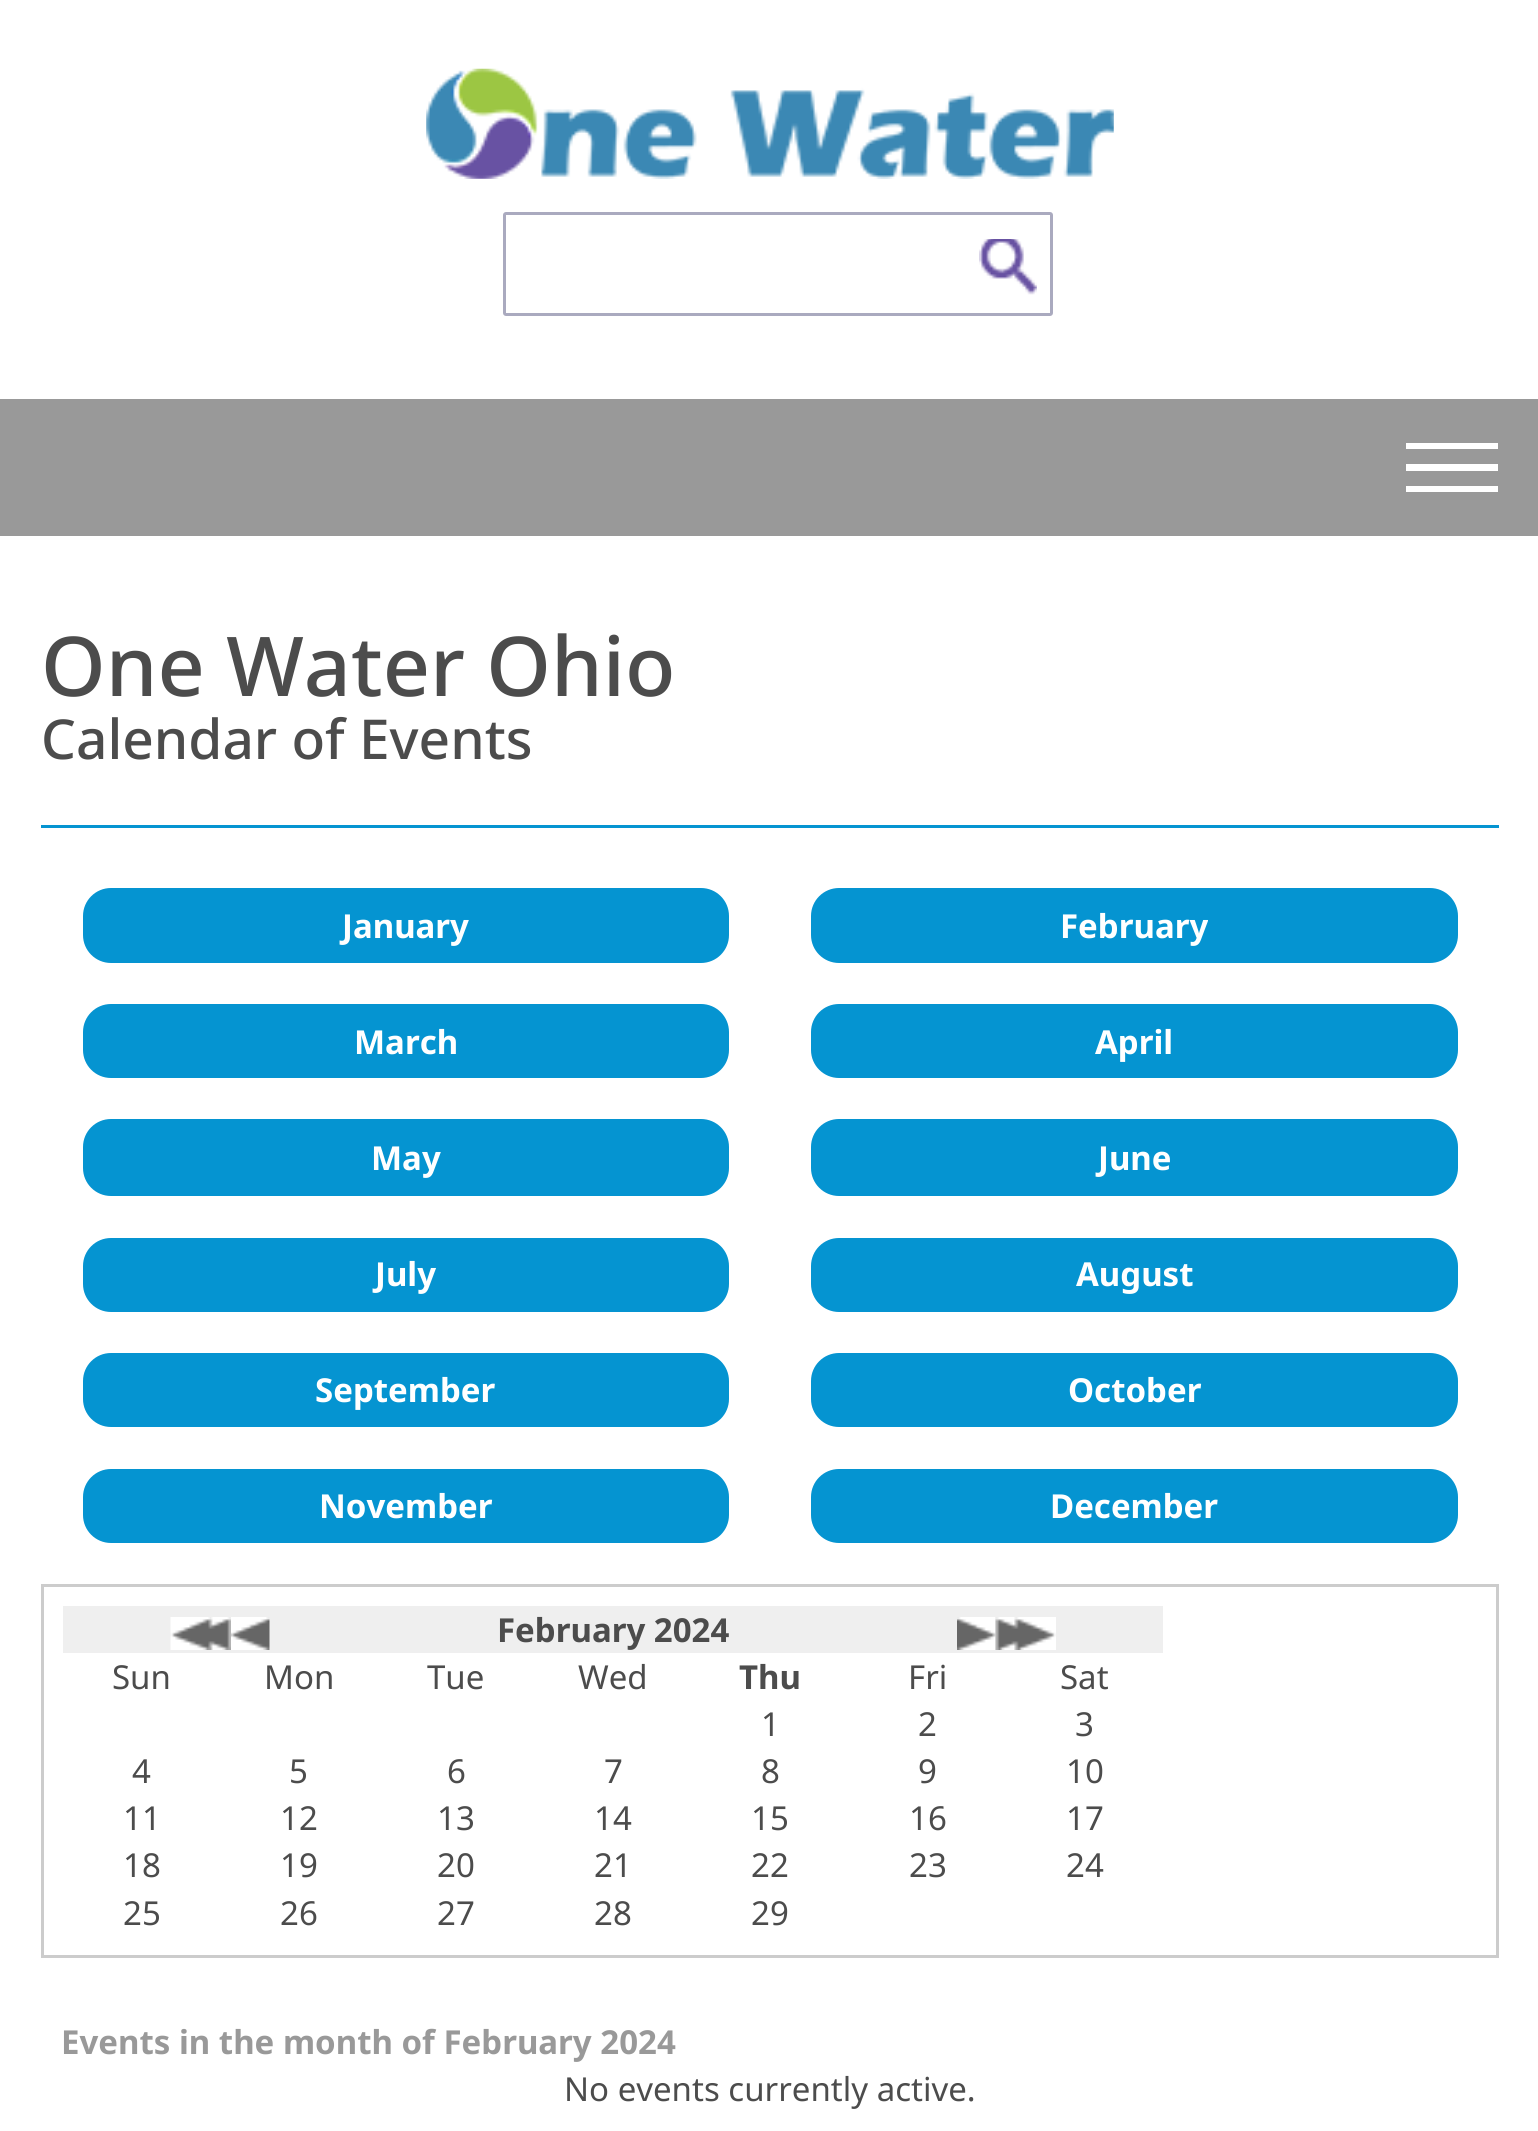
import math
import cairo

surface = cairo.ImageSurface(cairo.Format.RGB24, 1538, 2131)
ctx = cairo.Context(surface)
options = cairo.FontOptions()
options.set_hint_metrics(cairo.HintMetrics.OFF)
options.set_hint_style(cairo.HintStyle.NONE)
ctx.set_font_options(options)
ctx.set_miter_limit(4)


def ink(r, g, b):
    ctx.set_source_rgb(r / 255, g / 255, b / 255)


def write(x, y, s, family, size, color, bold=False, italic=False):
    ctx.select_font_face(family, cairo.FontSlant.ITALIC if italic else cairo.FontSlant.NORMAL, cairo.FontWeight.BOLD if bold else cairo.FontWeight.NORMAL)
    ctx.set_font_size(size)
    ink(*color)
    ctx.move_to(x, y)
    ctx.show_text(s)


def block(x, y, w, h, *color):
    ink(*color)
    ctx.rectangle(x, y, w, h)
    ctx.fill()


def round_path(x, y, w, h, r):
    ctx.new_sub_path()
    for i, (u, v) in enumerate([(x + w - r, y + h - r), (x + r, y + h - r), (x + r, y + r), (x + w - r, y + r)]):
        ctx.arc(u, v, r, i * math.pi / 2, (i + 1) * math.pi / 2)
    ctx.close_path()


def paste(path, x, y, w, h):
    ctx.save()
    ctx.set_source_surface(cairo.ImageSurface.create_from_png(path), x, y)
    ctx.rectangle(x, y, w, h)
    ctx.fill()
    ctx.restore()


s1 = dict(family="Noto Sans Medium", size=82.5, color=(76, 76, 76))
s2 = dict(family="Noto Sans Medium", size=55, color=(76, 76, 76))
s3 = dict(family="Noto Sans", size=33, color=(255, 255, 255), bold=True)
s4 = dict(family="Noto Sans", size=33, color=(76, 76, 76), bold=True)
s5 = dict(family="Noto Sans", size=33, color=(76, 76, 76))
s6 = dict(family="Noto Sans", size=33, color=(153, 153, 153), bold=True)

ink(255, 255, 255)
ctx.paint()
paste("pic1.png", 426, 68, 688, 111)
round_path(504.5, 213.5, 547, 101, 1.5)
ink(170, 170, 191)
ctx.set_line_width(3)
ctx.stroke()
paste("pic2.png", 979, 239, 58, 56)
block(0, 399, 1538, 137, 153, 153, 153)
block(1406, 443, 92, 6, 255, 255, 255)
block(1406, 464, 92, 7, 255, 255, 255)
block(1406, 486, 92, 6, 255, 255, 255)
write(41, 696, "One Water Ohio", **s1)
block(41, 825, 1458, 3, 5, 148, 209)
write(41, 759, "Calendar of Events", **s2)
ink(5, 148, 209)
round_path(83, 888, 646, 75, 28)
ctx.fill()
write(342, 938, "January", **s3)
ink(5, 148, 209)
round_path(811, 888, 647, 75, 28)
ctx.fill()
write(1060, 938, "February", **s3)
ink(5, 148, 209)
round_path(83, 1004, 646, 74, 28)
ctx.fill()
write(354, 1054, "March", **s3)
ink(5, 148, 209)
round_path(811, 1004, 647, 74, 28)
ctx.fill()
write(1095, 1054, "April", **s3)
ink(5, 148, 209)
round_path(83, 1119, 646, 77, 28)
ctx.fill()
write(371, 1170, "May", **s3)
ink(5, 148, 209)
round_path(811, 1119, 647, 77, 28)
ctx.fill()
write(1098, 1170, "June", **s3)
ink(5, 148, 209)
round_path(83, 1238, 646, 74, 28)
ctx.fill()
write(375, 1286, "July", **s3)
ink(5, 148, 209)
round_path(811, 1238, 647, 74, 28)
ctx.fill()
write(1076, 1286, "August", **s3)
ink(5, 148, 209)
round_path(83, 1353, 646, 74, 28)
ctx.fill()
write(315, 1402, "September", **s3)
ink(5, 148, 209)
round_path(811, 1353, 647, 74, 28)
ctx.fill()
write(1068, 1402, "October", **s3)
ink(5, 148, 209)
round_path(83, 1469, 646, 74, 28)
ctx.fill()
write(319, 1518, "November", **s3)
ink(5, 148, 209)
round_path(811, 1469, 647, 74, 28)
ctx.fill()
write(1050, 1518, "December", **s3)
ctx.rectangle(42.5, 1585.5, 1455, 371)
ink(204, 204, 204)
ctx.stroke()
block(63, 1606, 1100, 47, 239, 239, 239)
paste("pic3.png", 170, 1617, 61, 33)
paste("pic4.png", 231, 1617, 39, 33)
write(497, 1642, "February 2024", **s4)
paste("pic5.png", 957, 1617, 39, 33)
paste("pic6.png", 995, 1617, 61, 33)
write(112, 1689, "Sun", **s5)
write(264, 1689, "Mon", **s5)
write(427, 1689, "Tue", **s5)
write(578, 1689, "Wed", **s5)
write(739, 1689, "Thu", **s4)
write(908, 1689, "Fri", **s5)
write(1060, 1689, "Sat", **s5)
write(761, 1736, "1", **s5)
write(918, 1736, "2", **s5)
write(1075, 1736, "3", **s5)
write(132, 1783, "4", **s5)
write(289, 1783, "5", **s5)
write(447, 1783, "6", **s5)
write(604, 1783, "7", **s5)
write(761, 1783, "8", **s5)
write(918, 1783, "9", **s5)
write(1066, 1783, "10", **s5)
write(123, 1830, "11", **s5)
write(280, 1830, "12", **s5)
write(437, 1830, "13", **s5)
write(594, 1830, "14", **s5)
write(751, 1830, "15", **s5)
write(909, 1830, "16", **s5)
write(1066, 1830, "17", **s5)
write(123, 1877, "18", **s5)
write(280, 1877, "19", **s5)
write(437, 1877, "20", **s5)
write(594, 1877, "21", **s5)
write(751, 1877, "22", **s5)
write(909, 1877, "23", **s5)
write(1066, 1877, "24", **s5)
write(123, 1925, "25", **s5)
write(280, 1925, "26", **s5)
write(437, 1925, "27", **s5)
write(594, 1925, "28", **s5)
write(751, 1925, "29", **s5)
write(61, 2054, "Events in the month of February 2024", **s6)
write(564, 2101, "No events currently active.", **s5)
surface.write_to_png("screenshot.png")
